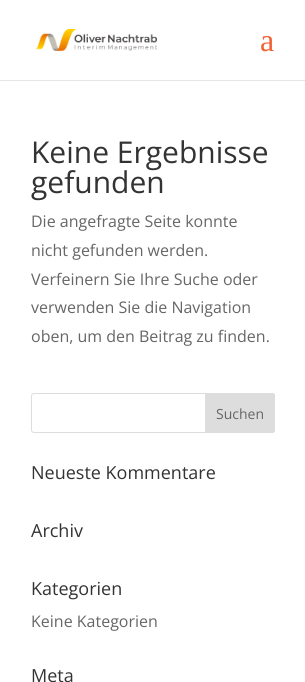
import math
import cairo

surface = cairo.ImageSurface(cairo.Format.RGB24, 305, 682)
ctx = cairo.Context(surface)
options = cairo.FontOptions()
options.set_hint_metrics(cairo.HintMetrics.OFF)
options.set_hint_style(cairo.HintStyle.NONE)
ctx.set_font_options(options)
ctx.set_miter_limit(4)


def ink(r, g, b):
    ctx.set_source_rgb(r / 255, g / 255, b / 255)


def write(x, y, s, family, size, color, bold=False, italic=False):
    ctx.select_font_face(family, cairo.FontSlant.ITALIC if italic else cairo.FontSlant.NORMAL, cairo.FontWeight.BOLD if bold else cairo.FontWeight.NORMAL)
    ctx.set_font_size(size)
    ink(*color)
    ctx.move_to(x, y)
    ctx.show_text(s)


def block(x, y, w, h, *color):
    ink(*color)
    ctx.rectangle(x, y, w, h)
    ctx.fill()


def round_path(x, y, w, h, r):
    ctx.new_sub_path()
    for i, (u, v) in enumerate([(x + w - r, y + h - r), (x + r, y + h - r), (x + r, y + r), (x + w - r, y + r)]):
        ctx.arc(u, v, r, i * math.pi / 2, (i + 1) * math.pi / 2)
    ctx.close_path()


def paste(path, x, y, w, h):
    ctx.save()
    ctx.set_source_surface(cairo.ImageSurface.create_from_png(path), x, y)
    ctx.rectangle(x, y, w, h)
    ctx.fill()
    ctx.restore()


s1 = dict(family="Liberation Serif", size=32, color=(241, 99, 53))
s2 = dict(family="Open Sans", size=30, color=(51, 51, 51))
s3 = dict(family="Open Sans", size=16, color=(102, 102, 102))
s4 = dict(family="Open Sans", size=14, color=(102, 102, 102))
s5 = dict(family="Open Sans", size=18, color=(51, 51, 51))

ink(255, 255, 255)
ctx.paint()
block(0, 80, 305, 1, 230, 230, 230)
paste("pic1.png", 35, 29, 122, 22)
write(260, 51, "a", **s1)
write(31, 163, "Keine Ergebnisse", **s2)
write(31, 193, "gefunden", **s2)
write(31, 227, "Die angefragte Seite konnte", **s3)
write(31, 256, "nicht gefunden werden.", **s3)
write(31, 285, "Verfeinern Sie Ihre Suche oder", **s3)
write(31, 313, "verwenden Sie die Navigation", **s3)
write(31, 342, "oben, um den Beitrag zu finden.", **s3)
round_path(31.5, 393.5, 243, 39, 2.5)
ink(221, 221, 221)
ctx.set_line_width(1)
ctx.stroke()
ctx.new_path()
ctx.move_to(205.5, 393.5)
ctx.line_to(272, 393.5)
ctx.curve_to(273.5, 393.5, 274.5, 394.5, 274.5, 396)
ctx.line_to(274.5, 430)
ctx.curve_to(274.5, 431.5, 273.5, 432.5, 272, 432.5)
ctx.line_to(205.5, 432.5)
ctx.close_path()
ctx.fill_preserve()
ctx.stroke()
write(216, 419, "Suchen", **s4)
write(31, 479, "Neueste Kommentare", **s5)
write(31, 537, "Archiv", **s5)
write(31, 595, "Kategorien", **s5)
write(31, 627, "Keine Kategorien", **s3)
write(31, 682, "Meta", **s5)
surface.write_to_png("screenshot.png")
